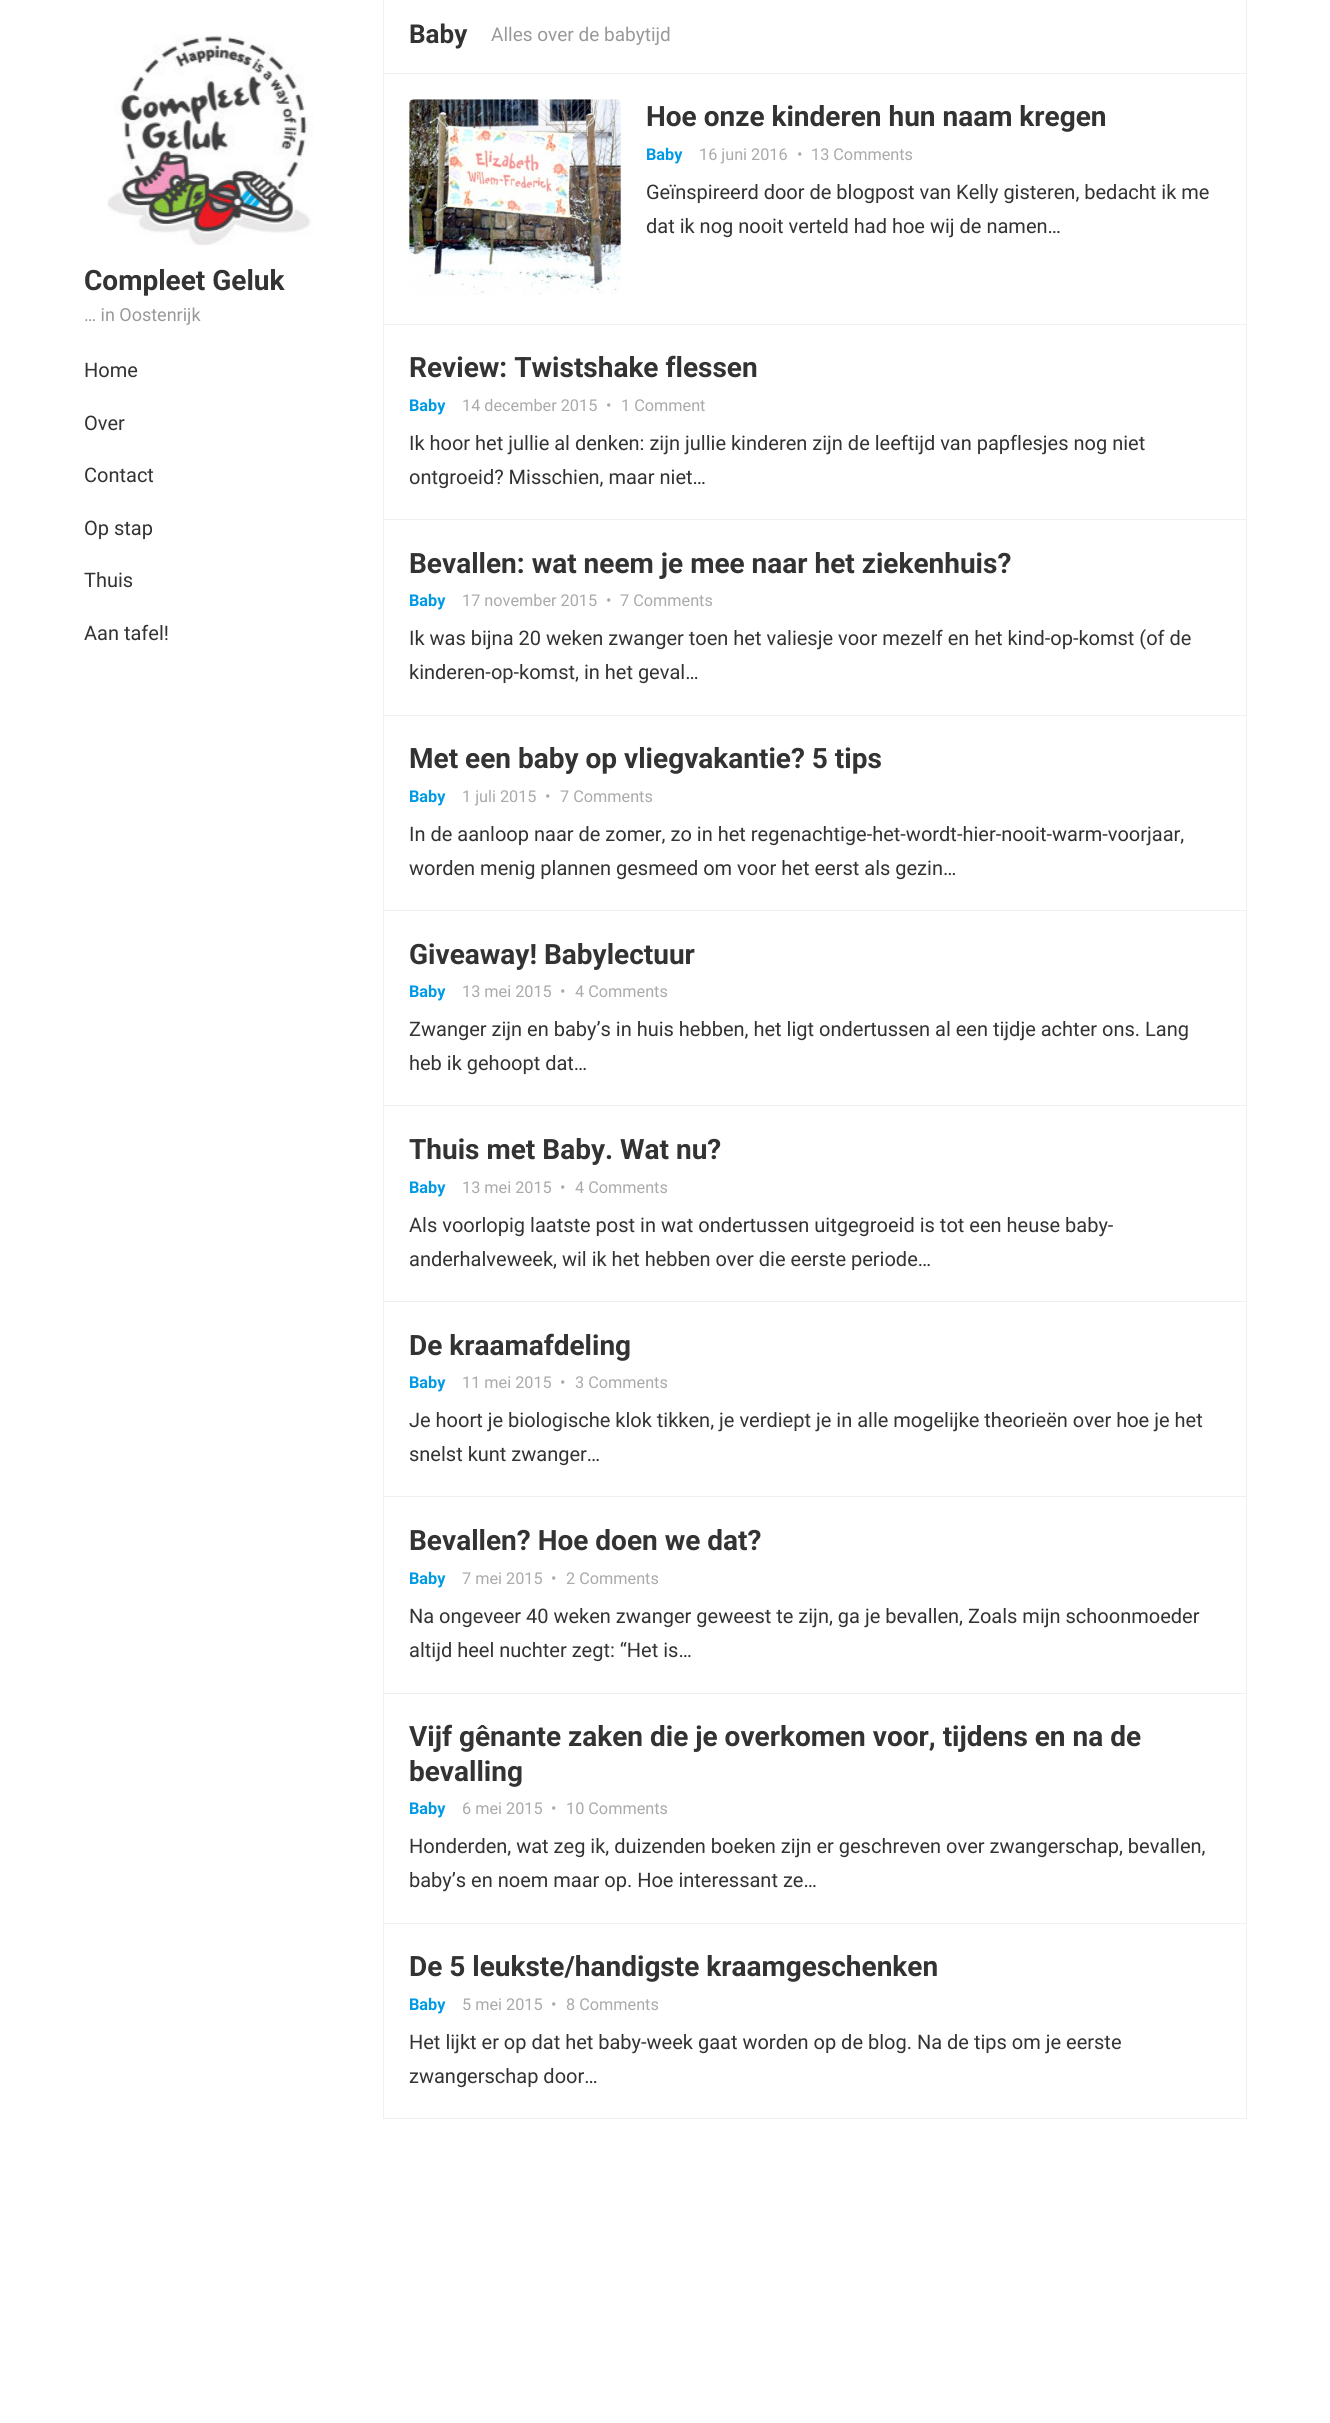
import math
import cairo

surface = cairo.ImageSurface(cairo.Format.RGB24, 1330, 2423)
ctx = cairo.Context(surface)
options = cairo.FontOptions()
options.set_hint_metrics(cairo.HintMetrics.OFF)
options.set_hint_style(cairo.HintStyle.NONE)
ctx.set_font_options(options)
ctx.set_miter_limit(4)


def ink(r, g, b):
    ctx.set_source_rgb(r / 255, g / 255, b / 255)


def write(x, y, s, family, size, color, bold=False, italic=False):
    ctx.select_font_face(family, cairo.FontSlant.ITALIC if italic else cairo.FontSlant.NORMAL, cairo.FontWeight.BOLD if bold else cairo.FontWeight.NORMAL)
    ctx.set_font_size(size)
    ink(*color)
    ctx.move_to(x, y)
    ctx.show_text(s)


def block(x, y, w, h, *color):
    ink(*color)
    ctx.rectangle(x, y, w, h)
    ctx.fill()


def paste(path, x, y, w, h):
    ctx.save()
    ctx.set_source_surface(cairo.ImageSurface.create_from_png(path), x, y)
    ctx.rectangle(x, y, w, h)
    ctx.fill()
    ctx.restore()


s1 = dict(family="Roboto", size=28, color=(51, 51, 51), bold=True)
s2 = dict(family="Roboto", size=18, color=(153, 153, 153))
s3 = dict(family="Roboto", size=20, color=(51, 51, 51))
s4 = dict(family="Roboto", size=26, color=(51, 51, 51), bold=True)
s5 = dict(family="Roboto", size=19, color=(153, 153, 153))
s6 = dict(family="Roboto", size=16.25, color=(0, 153, 229), bold=True)
s7 = dict(family="Roboto", size=16.25, color=(170, 170, 170))

ink(255, 255, 255)
ctx.paint()
block(383, 0, 1, 2119, 240, 240, 240)
block(1246, 0, 1, 2119, 240, 240, 240)
paste("pic1.png", 107, 35, 207, 210)
write(84, 290, "Compleet Geluk", **s1)
write(84, 321, "… in Oostenrijk", **s2)
write(84, 377, "Home", **s3)
write(84, 430, "Over", **s3)
write(84, 482, "Contact", **s3)
write(84, 535, "Op stap", **s3)
write(84, 587, "Thuis", **s3)
write(84, 640, "Aan tafel!", **s3)
block(384, 73, 862, 1, 240, 240, 240)
write(409, 43, "Baby", **s4)
write(491, 41, "Alles over de babytijd", **s5)
block(384, 324, 862, 1, 240, 240, 240)
paste("pic2.png", 408, 99, 214, 196)
write(646, 126, "Hoe onze kinderen hun naam kregen", **s1)
write(646, 160, "Baby", **s6)
write(699, 160, "16 juni 2016", **s7)
write(797, 160, "•", **s7)
write(811, 160, "13 Comments", **s7)
write(646, 199, "Geïnspireerd door de blogpost van Kelly gisteren, bedacht ik me", **s3)
write(646, 233, "dat ik nog nooit verteld had hoe wij de namen…", **s3)
block(384, 519, 862, 1, 240, 240, 240)
write(409, 377, "Review: Twistshake flessen", **s1)
write(409, 411, "Baby", **s6)
write(462, 411, "14 december 2015", **s7)
write(606, 411, "•", **s7)
write(621, 411, "1 Comment", **s7)
write(409, 450, "Ik hoor het jullie al denken: zijn jullie kinderen zijn de leeftijd van papflesjes nog niet", **s3)
write(409, 484, "ontgroeid? Misschien, maar niet…", **s3)
block(384, 715, 862, 1, 240, 240, 240)
write(409, 573, "Bevallen: wat neem je mee naar het ziekenhuis?", **s1)
write(409, 606, "Baby", **s6)
write(462, 606, "17 november 2015", **s7)
write(606, 606, "•", **s7)
write(620, 606, "7 Comments", **s7)
write(409, 645, "Ik was bijna 20 weken zwanger toen het valiesje voor mezelf en het kind-op-komst (of de", **s3)
write(409, 679, "kinderen-op-komst, in het geval…", **s3)
block(384, 910, 862, 1, 240, 240, 240)
write(409, 768, "Met een baby op vliegvakantie? 5 tips", **s1)
write(409, 802, "Baby", **s6)
write(462, 802, "1 juli 2015", **s7)
write(545, 802, "•", **s7)
write(560, 802, "7 Comments", **s7)
write(409, 841, "In de aanloop naar de zomer, zo in het regenachtige-het-wordt-hier-nooit-warm-voorjaar,", **s3)
write(409, 875, "worden menig plannen gesmeed om voor het eerst als gezin…", **s3)
block(384, 1105, 862, 1, 240, 240, 240)
write(409, 964, "Giveaway! Babylectuur", **s1)
write(409, 997, "Baby", **s6)
write(462, 997, "13 mei 2015", **s7)
write(560, 997, "•", **s7)
write(575, 997, "4 Comments", **s7)
write(409, 1036, "Zwanger zijn en baby’s in huis hebben, het ligt ondertussen al een tijdje achter ons. Lang", **s3)
write(409, 1070, "heb ik gehoopt dat…", **s3)
block(384, 1301, 862, 1, 240, 240, 240)
write(409, 1159, "Thuis met Baby. Wat nu?", **s1)
write(409, 1193, "Baby", **s6)
write(462, 1193, "13 mei 2015", **s7)
write(560, 1193, "•", **s7)
write(575, 1193, "4 Comments", **s7)
write(409, 1232, "Als voorlopig laatste post in wat ondertussen uitgegroeid is tot een heuse baby-", **s3)
write(409, 1266, "anderhalveweek, wil ik het hebben over die eerste periode…", **s3)
block(384, 1496, 862, 1, 240, 240, 240)
write(409, 1355, "De kraamafdeling", **s1)
write(409, 1388, "Baby", **s6)
write(462, 1388, "11 mei 2015", **s7)
write(560, 1388, "•", **s7)
write(575, 1388, "3 Comments", **s7)
write(409, 1427, "Je hoort je biologische klok tikken, je verdiept je in alle mogelijke theorieën over hoe je het", **s3)
write(409, 1461, "snelst kunt zwanger…", **s3)
block(384, 1693, 862, 1, 240, 240, 240)
write(409, 1550, "Bevallen? Hoe doen we dat?", **s1)
write(409, 1584, "Baby", **s6)
write(462, 1584, "7 mei 2015", **s7)
write(551, 1584, "•", **s7)
write(566, 1584, "2 Comments", **s7)
write(409, 1623, "Na ongeveer 40 weken zwanger geweest te zijn, ga je bevallen, Zoals mijn schoonmoeder", **s3)
write(409, 1657, "altijd heel nuchter zegt: “Het is…", **s3)
block(384, 1923, 862, 1, 240, 240, 240)
write(409, 1746, "Vijf gênante zaken die je overkomen voor, tijdens en na de", **s1)
write(409, 1781, "bevalling", **s1)
write(409, 1814, "Baby", **s6)
write(462, 1814, "6 mei 2015", **s7)
write(551, 1814, "•", **s7)
write(566, 1814, "10 Comments", **s7)
write(409, 1853, "Honderden, wat zeg ik, duizenden boeken zijn er geschreven over zwangerschap, bevallen,", **s3)
write(409, 1887, "baby’s en noem maar op. Hoe interessant ze…", **s3)
block(384, 2118, 862, 1, 240, 240, 240)
write(409, 1976, "De 5 leukste/handigste kraamgeschenken", **s1)
write(409, 2010, "Baby", **s6)
write(462, 2010, "5 mei 2015", **s7)
write(551, 2010, "•", **s7)
write(566, 2010, "8 Comments", **s7)
write(409, 2049, "Het lijkt er op dat het baby-week gaat worden op de blog. Na de tips om je eerste", **s3)
write(409, 2083, "zwangerschap door…", **s3)
surface.write_to_png("screenshot.png")
